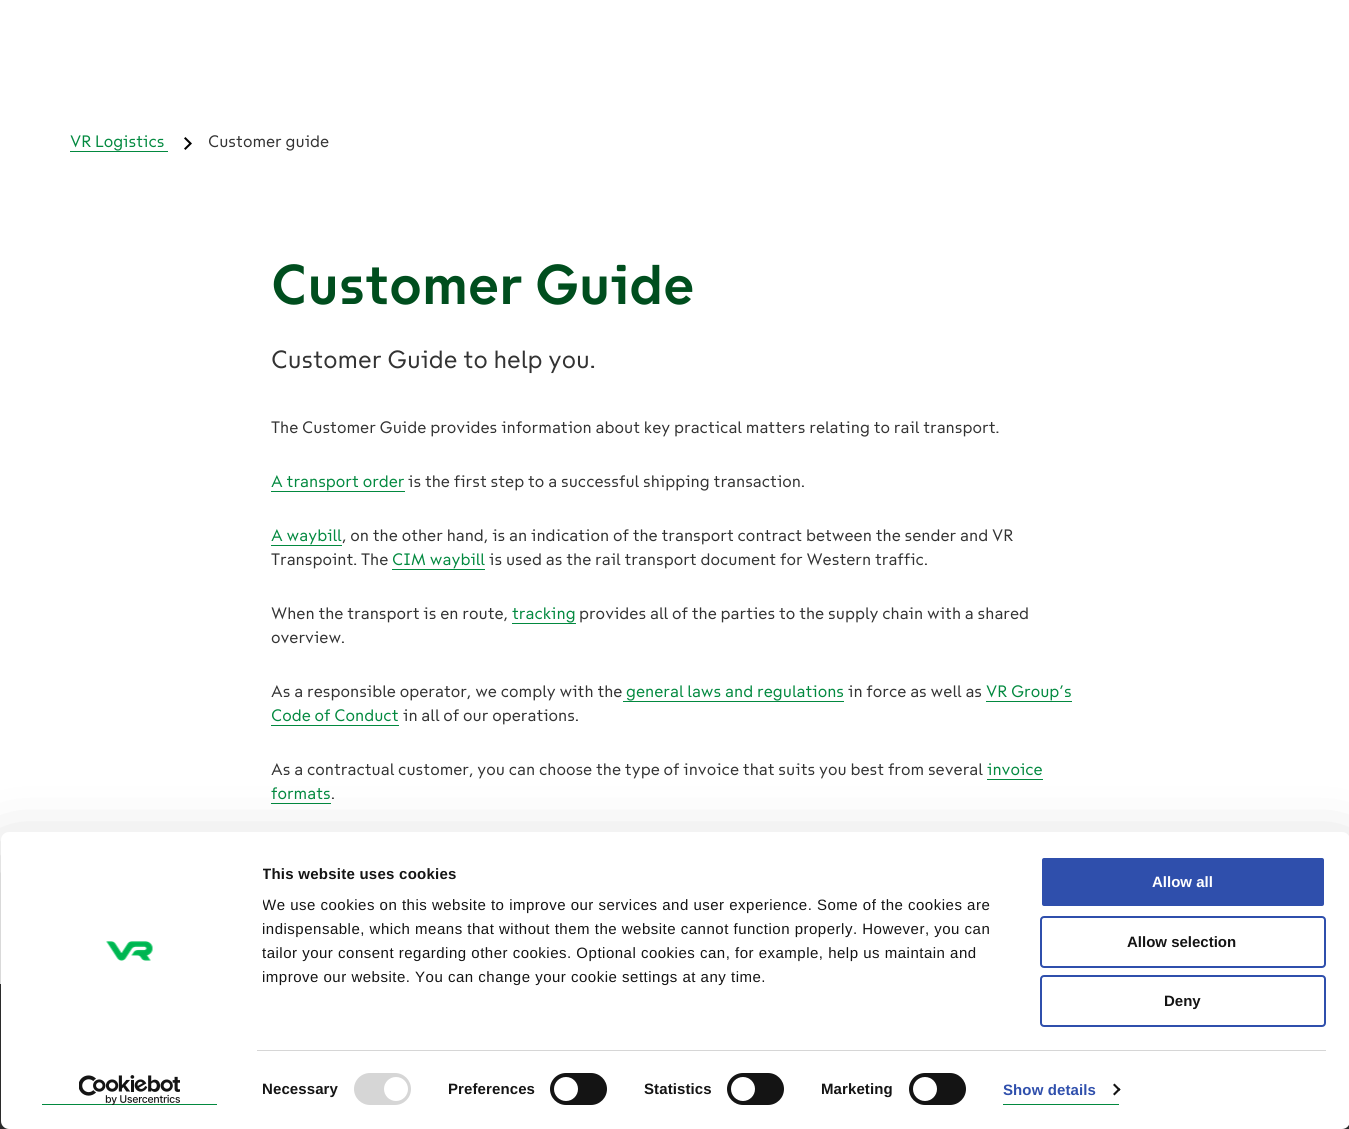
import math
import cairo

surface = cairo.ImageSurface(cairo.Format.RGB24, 1349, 1129)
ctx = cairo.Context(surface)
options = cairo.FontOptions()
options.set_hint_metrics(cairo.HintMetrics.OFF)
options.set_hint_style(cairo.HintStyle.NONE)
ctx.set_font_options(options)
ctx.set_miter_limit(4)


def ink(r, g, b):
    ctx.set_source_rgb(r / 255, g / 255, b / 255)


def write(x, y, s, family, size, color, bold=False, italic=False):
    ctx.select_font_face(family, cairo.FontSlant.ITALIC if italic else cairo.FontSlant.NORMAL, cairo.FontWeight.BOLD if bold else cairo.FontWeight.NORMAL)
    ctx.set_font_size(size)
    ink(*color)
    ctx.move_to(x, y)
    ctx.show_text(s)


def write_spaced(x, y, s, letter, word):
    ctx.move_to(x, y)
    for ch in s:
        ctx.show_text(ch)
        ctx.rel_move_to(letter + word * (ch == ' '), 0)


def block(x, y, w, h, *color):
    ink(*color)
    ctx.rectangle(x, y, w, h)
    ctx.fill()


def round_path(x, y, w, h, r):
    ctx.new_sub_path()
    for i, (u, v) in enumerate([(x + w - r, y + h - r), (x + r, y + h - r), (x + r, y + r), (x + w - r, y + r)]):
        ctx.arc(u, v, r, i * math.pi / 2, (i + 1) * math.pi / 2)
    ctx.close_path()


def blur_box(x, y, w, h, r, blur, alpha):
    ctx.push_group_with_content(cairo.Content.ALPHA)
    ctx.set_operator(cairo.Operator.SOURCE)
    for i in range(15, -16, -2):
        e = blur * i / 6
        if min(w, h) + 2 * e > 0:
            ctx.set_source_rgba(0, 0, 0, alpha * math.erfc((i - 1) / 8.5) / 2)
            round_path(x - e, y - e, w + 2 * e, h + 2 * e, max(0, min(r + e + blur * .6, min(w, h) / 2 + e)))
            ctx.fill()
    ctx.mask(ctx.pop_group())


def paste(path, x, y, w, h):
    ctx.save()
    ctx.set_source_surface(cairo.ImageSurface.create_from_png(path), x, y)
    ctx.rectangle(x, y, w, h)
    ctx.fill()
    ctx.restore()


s1 = dict(family="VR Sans", size=16, color=(2, 137, 63))
s2 = dict(family="VR Sans", size=16, color=(51, 51, 51))
s3 = dict(family="VR Sans", size=24, color=(51, 51, 51))
s4 = dict(family="Liberation Sans", size=15, color=(255, 255, 255), bold=True)
s5 = dict(family="Liberation Sans", size=15, color=(20, 20, 20), bold=True)

ink(255, 255, 255)
ctx.paint()
write(70, 147, "VR Logistics", **s1)
block(70, 151, 98, 1, 2, 137, 63)
paste("pic1.png", 184, 137, 8, 13)
write(208, 147, "Customer guide", **s2)
ctx.select_font_face("VR Sans SemiBold")
ctx.set_font_size(54)
ink(0, 78, 30)
write_spaced(271, 304, "Customer Guide", -0.2, 0)
write(271, 368, "Customer Guide to help you.", **s3)
write(271, 433, "The Customer Guide provides information about key practical matters relating to rail transport.", **s2)
write(271, 487, "A transport order", **s1)
block(271, 491, 134, 1, 2, 137, 63)
write(408, 487, "is the first step to a successful shipping transaction.", **s2)
write(271, 541, "A waybill", **s1)
block(271, 545, 71, 1, 2, 137, 63)
write(342, 541, ", on the other hand, is an indication of the transport contract between the sender and VR", **s2)
write(271, 565, "Transpoint. The", **s2)
write(392, 565, "CIM waybill", **s1)
block(392, 569, 93, 1, 2, 137, 63)
write(489, 565, "is used as the rail transport document for Western traffic.", **s2)
write(271, 619, "When the transport is en route,", **s2)
write(512, 619, "tracking", **s1)
block(512, 623, 64, 1, 2, 137, 63)
write(579, 619, "provides all of the parties to the supply chain with a shared", **s2)
write(271, 643, "overview.", **s2)
write(271, 697, "As a responsible operator, we comply with the", **s2)
write(626, 697, "general laws and regulations", **s1)
block(623, 701, 221, 1, 2, 137, 63)
write(848, 697, "in force as well as", **s2)
write(986, 697, "VR Group’s", **s1)
block(986, 701, 86, 1, 2, 137, 63)
write(271, 721, "Code of Conduct", **s1)
block(271, 725, 128, 1, 2, 137, 63)
write(403, 721, "in all of our operations.", **s2)
write(271, 775, "As a contractual customer, you can choose the type of invoice that suits you best from several", **s2)
write(987, 775, "invoice", **s1)
block(987, 779, 56, 1, 2, 137, 63)
write(271, 799, "formats", **s1)
block(271, 803, 60, 1, 2, 137, 63)
write(331, 799, ".", **s2)
block(0, 984, 1349, 145, 51, 51, 51)
ink(0, 0, 0)
blur_box(1, 862, 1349, 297, 8, 35, 0.3)
ink(255, 255, 255)
round_path(1, 832, 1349, 297, 8)
ctx.fill()
paste("pic2.png", 106, 941, 47, 20)
block(42, 1104, 175, 1, 2, 137, 63)
paste("pic3.png", 79, 1075, 101, 30)
ctx.save()
ctx.rectangle(263, 862, 748, 159)
ctx.clip()
ctx.select_font_face("Liberation Sans", cairo.FontSlant.NORMAL, cairo.FontWeight.BOLD)
ctx.set_font_size(15)
ink(20, 20, 20)
write_spaced(262, 879, "This website uses cookies", 0.25, 0)
ctx.select_font_face("Liberation Sans")
write_spaced(262, 910, "We use cookies on this website to improve our services and user experience. Some of the cookies are", 0.5, 0)
ctx.restore()
ctx.select_font_face("Liberation Sans")
ctx.set_font_size(15)
ink(20, 20, 20)
write_spaced(262, 934, "indispensable, which means that without them the website cannot function properly. However, you can", 0.5, 0)
write_spaced(262, 958, "tailor your consent regarding other cookies. Optional cookies can, for example, help us maintain and", 0.5, 0)
write_spaced(262, 982, "improve our website. You can change your cookie settings at any time.", 0.5, 0)
block(257, 1050, 1069, 1, 214, 214, 214)
ctx.select_font_face("Liberation Sans", cairo.FontSlant.NORMAL, cairo.FontWeight.BOLD)
ink(20, 20, 20)
write_spaced(262, 1094, "Necessary", 0.1, 0)
ink(214, 214, 214)
round_path(354, 1073, 57, 32, 16)
ctx.fill()
ink(255, 255, 255)
ctx.arc(396, 1089, 12, 0, 2 * math.pi)
ctx.fill()
ink(20, 20, 20)
write_spaced(448, 1094, "Preferences", 0.1, 0)
round_path(550, 1073, 57, 32, 16)
ctx.fill()
ink(255, 255, 255)
ctx.arc(566, 1089, 12, 0, 2 * math.pi)
ctx.fill()
ink(20, 20, 20)
write_spaced(644, 1094, "Statistics", 0.1, 0)
round_path(727, 1073, 57, 32, 16)
ctx.fill()
ink(255, 255, 255)
ctx.arc(743, 1089, 12, 0, 2 * math.pi)
ctx.fill()
ink(20, 20, 20)
write_spaced(821, 1094, "Marketing", 0.1, 0)
round_path(909, 1073, 57, 32, 16)
ctx.fill()
ink(255, 255, 255)
ctx.arc(925, 1089, 12, 0, 2 * math.pi)
ctx.fill()
block(1003, 1104, 116, 1, 2, 137, 63)
ink(47, 79, 172)
write_spaced(1003, 1095, "Show details", 0.1, 0)
ink(20, 20, 20)
ctx.new_path()
ctx.move_to(1114.5, 1083.5)
ctx.line_to(1120.5, 1089.5)
ctx.line_to(1119, 1091)
ctx.line_to(1113, 1085)
ctx.close_path()
ctx.fill()
ctx.new_path()
ctx.move_to(1119, 1088)
ctx.line_to(1120.5, 1089.5)
ctx.line_to(1114.5, 1095.5)
ctx.line_to(1113, 1094)
ctx.close_path()
ctx.fill()
ink(47, 79, 172)
round_path(1041, 857, 284, 50, 3)
ctx.fill_preserve()
ink(255, 255, 255)
ctx.stroke()
write(1152, 887, "Allow all", **s4)
round_path(1041, 917, 284, 50, 3)
ink(47, 79, 172)
ctx.stroke()
write(1127, 947, "Allow selection", **s5)
round_path(1041, 976, 284, 50, 3)
ink(47, 79, 172)
ctx.stroke()
write(1164, 1006, "Deny", **s5)
surface.write_to_png("screenshot.png")
